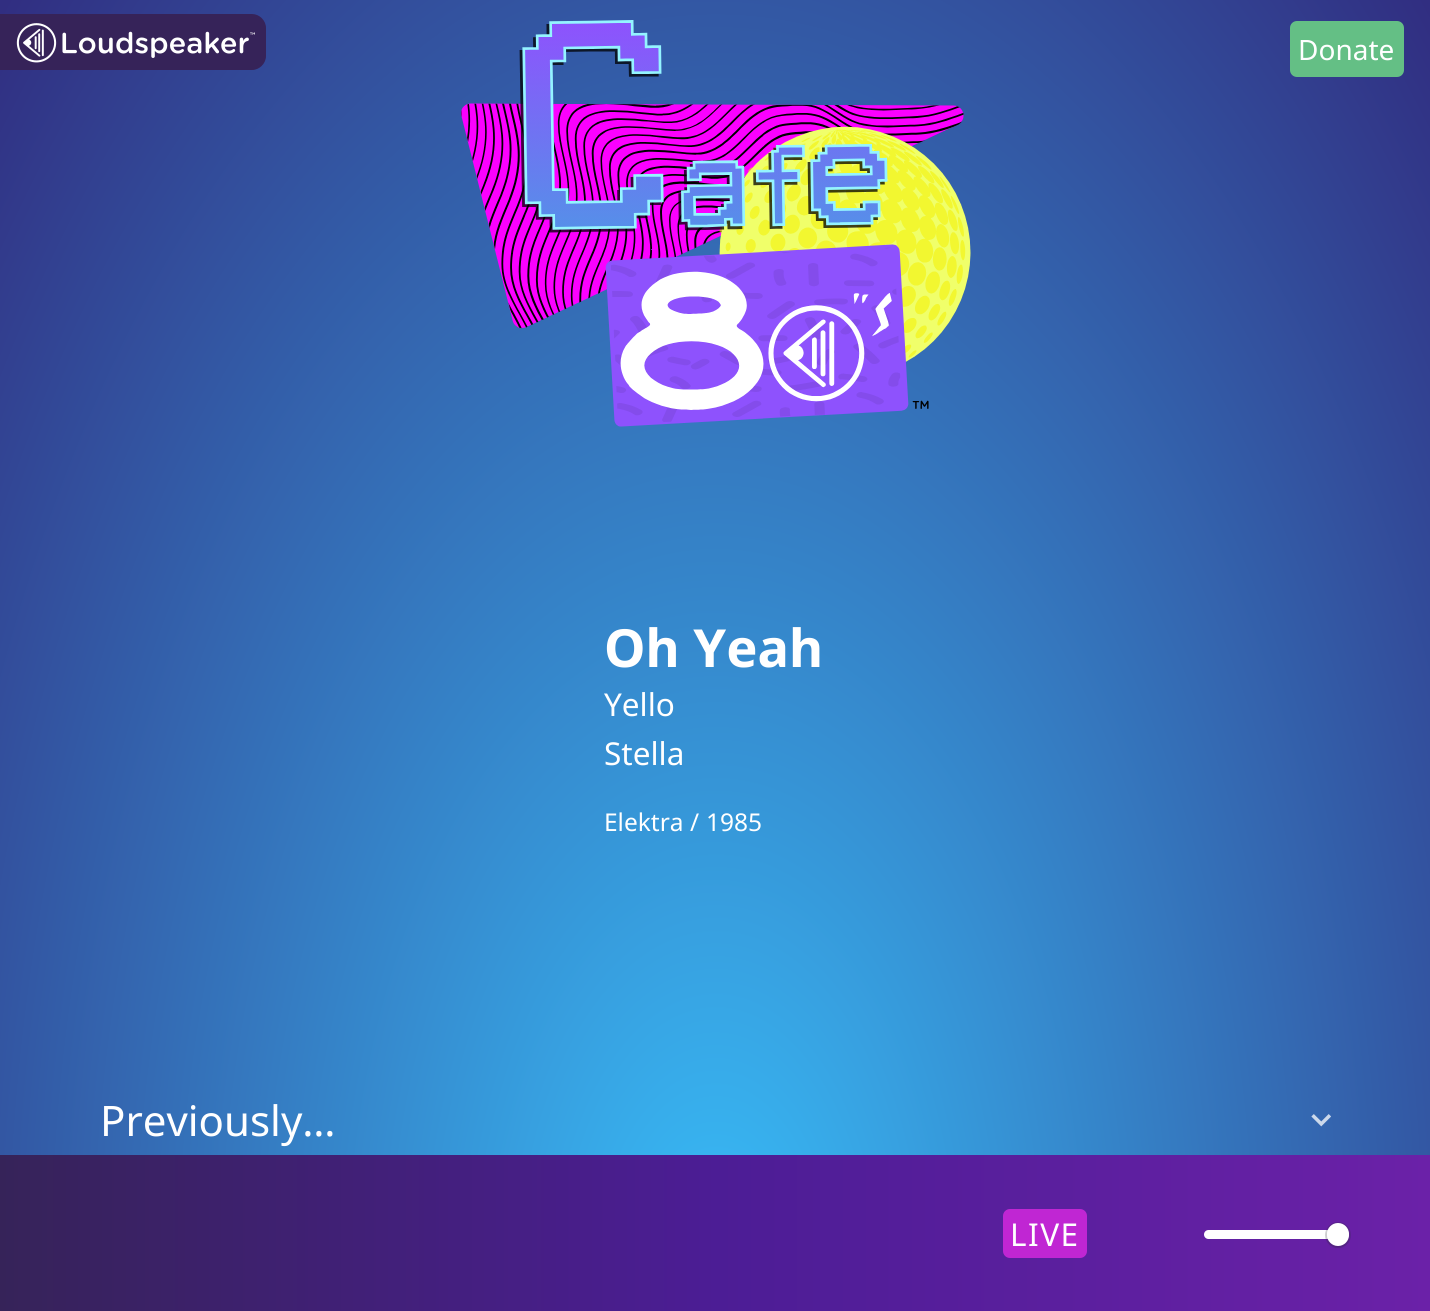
import math
import cairo

surface = cairo.ImageSurface(cairo.Format.RGB24, 1430, 1311)
ctx = cairo.Context(surface)
options = cairo.FontOptions()
options.set_hint_metrics(cairo.HintMetrics.OFF)
options.set_hint_style(cairo.HintStyle.NONE)
ctx.set_font_options(options)
ctx.set_miter_limit(4)


def ink(r, g, b):
    ctx.set_source_rgb(r / 255, g / 255, b / 255)


def write(x, y, s, family, size, color, bold=False, italic=False):
    ctx.select_font_face(family, cairo.FontSlant.ITALIC if italic else cairo.FontSlant.NORMAL, cairo.FontWeight.BOLD if bold else cairo.FontWeight.NORMAL)
    ctx.set_font_size(size)
    ink(*color)
    ctx.move_to(x, y)
    ctx.show_text(s)


def write_spaced(x, y, s, letter, word):
    ctx.move_to(x, y)
    for ch in s:
        ctx.show_text(ch)
        ctx.rel_move_to(letter + word * (ch == ' '), 0)


def round_path(x, y, w, h, r):
    ctx.new_sub_path()
    for i, (u, v) in enumerate([(x + w - r, y + h - r), (x + r, y + h - r), (x + r, y + r), (x + w - r, y + r)]):
        ctx.arc(u, v, r, i * math.pi / 2, (i + 1) * math.pi / 2)
    ctx.close_path()


def blur_box(x, y, w, h, r, blur, alpha):
    ctx.push_group_with_content(cairo.Content.ALPHA)
    ctx.set_operator(cairo.Operator.SOURCE)
    for i in range(15, -16, -2):
        e = blur * i / 6
        if min(w, h) + 2 * e > 0:
            ctx.set_source_rgba(0, 0, 0, alpha * math.erfc((i - 1) / 8.5) / 2)
            round_path(x - e, y - e, w + 2 * e, h + 2 * e, max(0, min(r + e + blur * .6, min(w, h) / 2 + e)))
            ctx.fill()
    ctx.mask(ctx.pop_group())


def paste(path, x, y, w, h):
    ctx.save()
    ctx.set_source_surface(cairo.ImageSurface.create_from_png(path), x, y)
    ctx.rectangle(x, y, w, h)
    ctx.fill()
    ctx.restore()


s1 = dict(family="Noto Sans", size=28, color=(255, 255, 255))
s2 = dict(family="Noto Sans", size=52.5, color=(255, 255, 255), bold=True)
s3 = dict(family="Noto Sans", size=31.5, color=(255, 255, 255))
s4 = dict(family="Noto Sans", size=24.5, color=(255, 255, 255))
s5 = dict(family="Noto Sans", size=42, color=(255, 255, 255))

ink(255, 255, 255)
ctx.paint()
gradient = cairo.RadialGradient(0, 0, 0, 0, 0, 1)
gradient.set_matrix(cairo.Matrix(1 / 1012, 0, 0, 1 / 1839, -1 * 716 / 1012, -1 * 1300 / 1839))
gradient.add_color_stop_rgba(0, 0.22, 0.741, 0.973, 1)
gradient.add_color_stop_rgba(1, 0.192, 0.18, 0.506, 1)
ctx.set_source(gradient)
ctx.rectangle(0, 0, 1430, 1155)
ctx.fill()
ink(54, 35, 89)
ctx.new_path()
ctx.move_to(0, 14)
ctx.line_to(252, 14)
ctx.curve_to(259.5, 14, 266, 20.5, 266, 28)
ctx.line_to(266, 56)
ctx.curve_to(266, 63.5, 259.5, 70, 252, 70)
ctx.line_to(0, 70)
ctx.close_path()
ctx.fill()
paste("pic1.png", 16, 23, 239, 40)
paste("pic2.png", 461, 20, 510, 407)
ink(100, 191, 133)
round_path(1290, 21, 114, 56, 7)
ctx.fill()
write(1298, 60, "Donate", **s1)
write(604, 667, "Oh Yeah", **s2)
write(604, 716, "Yello", **s3)
write(604, 765, "Stella", **s3)
write(604, 831, "Elektra", **s4)
write(690, 831, "/", **s4)
write(706, 831, "1985", **s4)
write(100, 1136, "Previously…", **s5)
paste("pic3.png", 1311, 1114, 20, 13)
gradient = cairo.LinearGradient(0, 1234, 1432, 1234)
gradient.add_color_stop_rgba(0, 0.212, 0.137, 0.349, 1)
gradient.add_color_stop_rgba(0.5, 0.298, 0.114, 0.584, 1)
gradient.add_color_stop_rgba(1, 0.42, 0.129, 0.659, 1)
ctx.set_source(gradient)
ctx.rectangle(0, 1155, 1430, 156)
ctx.fill()
ink(192, 38, 211)
round_path(1003, 1209, 84, 49, 7)
ctx.fill()
ctx.set_font_size(31.5)
ink(255, 255, 255)
write_spaced(1010, 1246, "LIVE", 1.5, 0)
round_path(1204, 1230, 145, 9, 4.5)
ctx.fill()
ctx.arc(1338, 1235, 12, 0, 2 * math.pi)
ctx.set_source_rgba(0.137, 0.157, 0.184, 0.2)
ctx.stroke()
ink(35, 40, 47)
blur_box(1327, 1225, 22, 23, 11, 1, 0.15)
ink(255, 255, 255)
round_path(1327, 1223, 22, 23, 11)
ctx.fill()
surface.write_to_png("screenshot.png")
